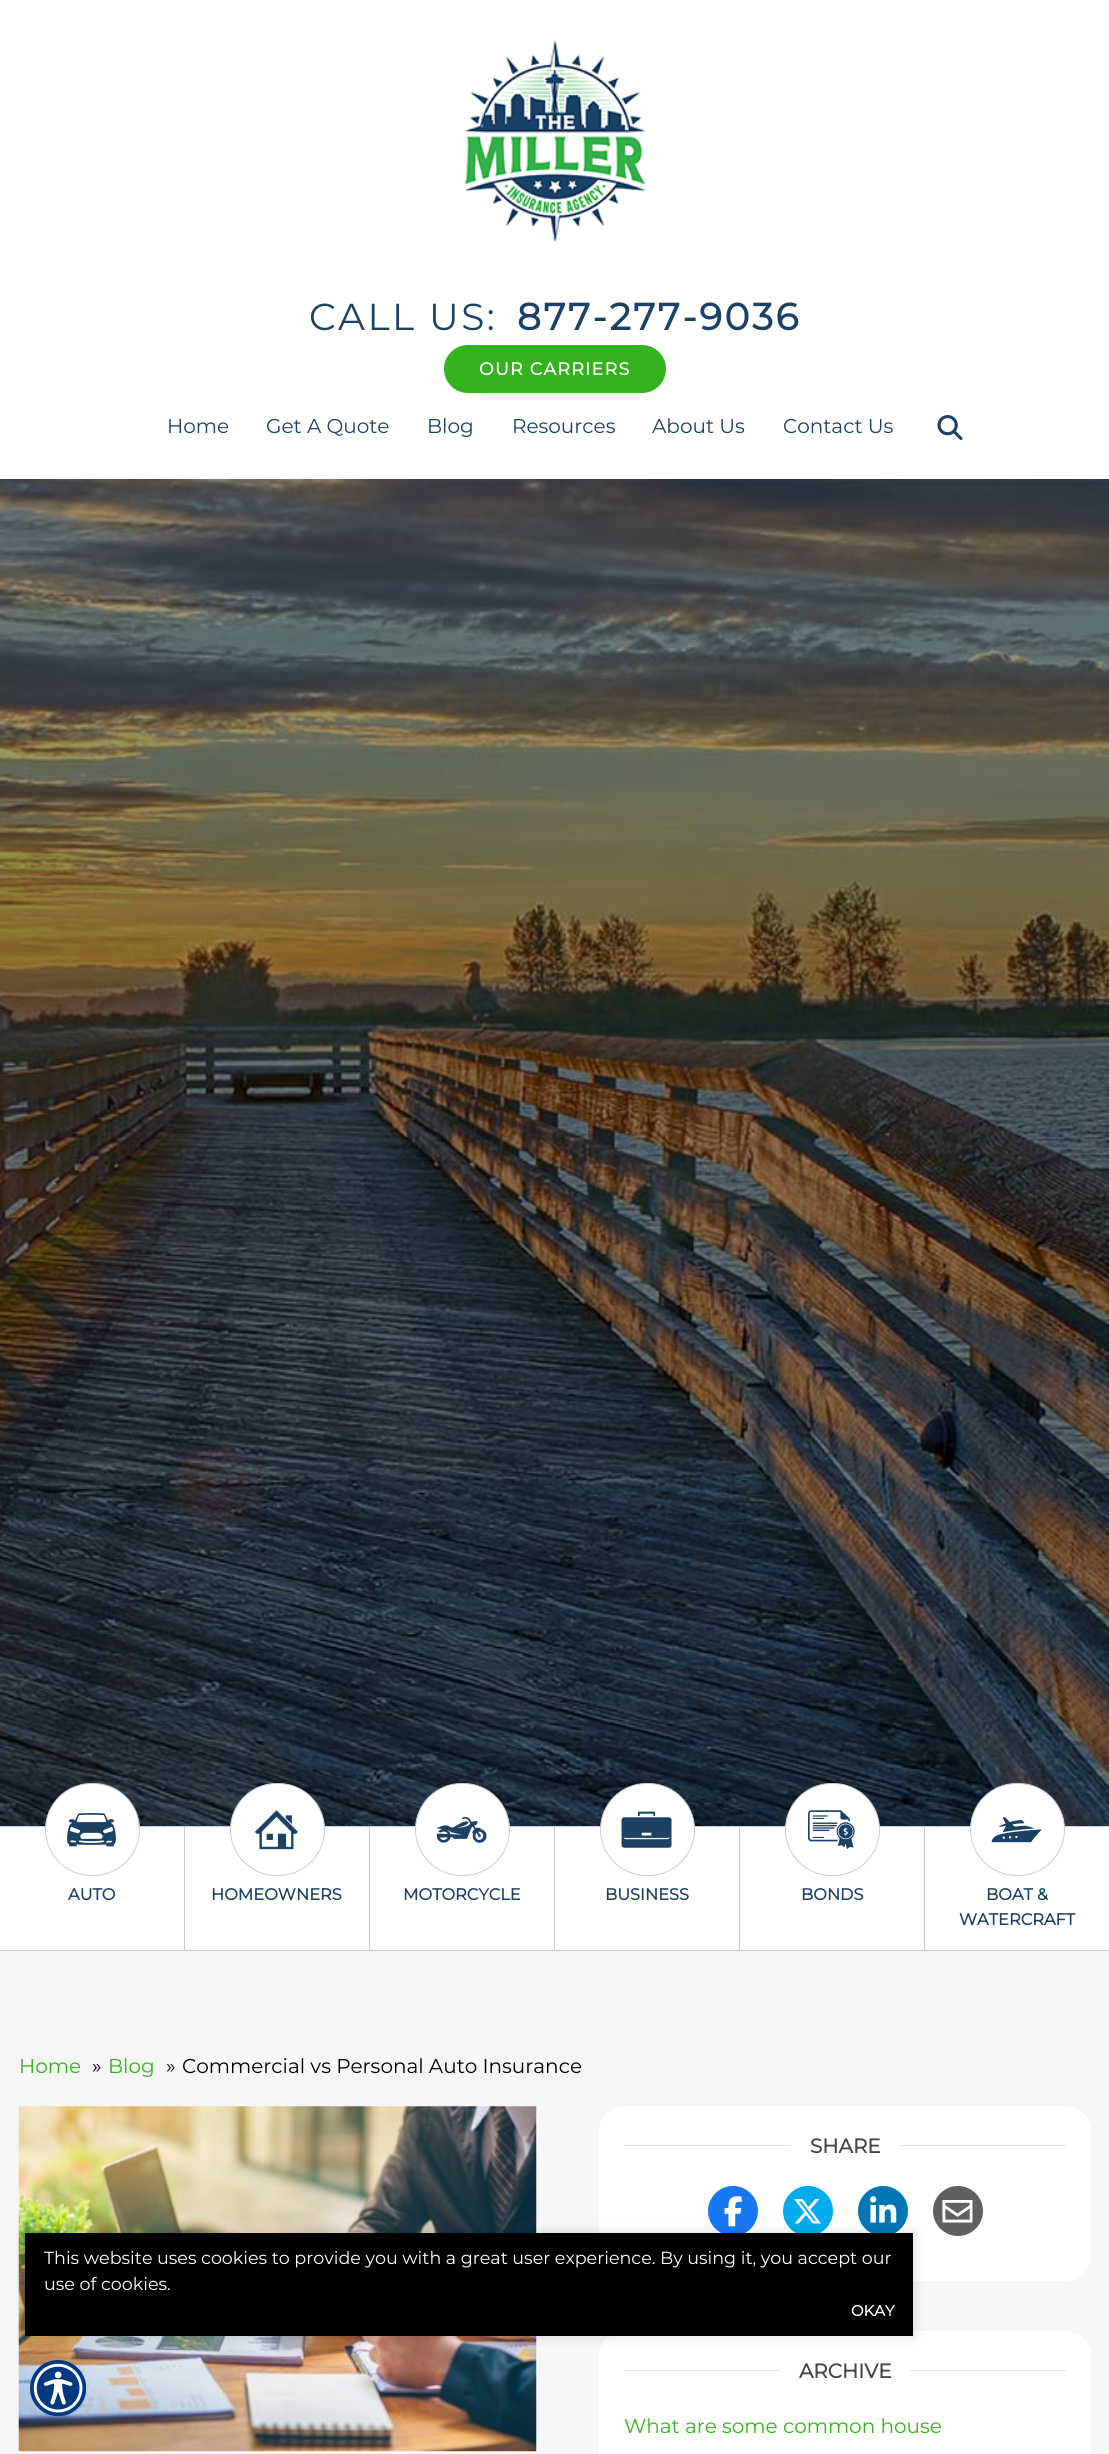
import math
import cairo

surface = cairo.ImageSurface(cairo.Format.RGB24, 1109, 2454)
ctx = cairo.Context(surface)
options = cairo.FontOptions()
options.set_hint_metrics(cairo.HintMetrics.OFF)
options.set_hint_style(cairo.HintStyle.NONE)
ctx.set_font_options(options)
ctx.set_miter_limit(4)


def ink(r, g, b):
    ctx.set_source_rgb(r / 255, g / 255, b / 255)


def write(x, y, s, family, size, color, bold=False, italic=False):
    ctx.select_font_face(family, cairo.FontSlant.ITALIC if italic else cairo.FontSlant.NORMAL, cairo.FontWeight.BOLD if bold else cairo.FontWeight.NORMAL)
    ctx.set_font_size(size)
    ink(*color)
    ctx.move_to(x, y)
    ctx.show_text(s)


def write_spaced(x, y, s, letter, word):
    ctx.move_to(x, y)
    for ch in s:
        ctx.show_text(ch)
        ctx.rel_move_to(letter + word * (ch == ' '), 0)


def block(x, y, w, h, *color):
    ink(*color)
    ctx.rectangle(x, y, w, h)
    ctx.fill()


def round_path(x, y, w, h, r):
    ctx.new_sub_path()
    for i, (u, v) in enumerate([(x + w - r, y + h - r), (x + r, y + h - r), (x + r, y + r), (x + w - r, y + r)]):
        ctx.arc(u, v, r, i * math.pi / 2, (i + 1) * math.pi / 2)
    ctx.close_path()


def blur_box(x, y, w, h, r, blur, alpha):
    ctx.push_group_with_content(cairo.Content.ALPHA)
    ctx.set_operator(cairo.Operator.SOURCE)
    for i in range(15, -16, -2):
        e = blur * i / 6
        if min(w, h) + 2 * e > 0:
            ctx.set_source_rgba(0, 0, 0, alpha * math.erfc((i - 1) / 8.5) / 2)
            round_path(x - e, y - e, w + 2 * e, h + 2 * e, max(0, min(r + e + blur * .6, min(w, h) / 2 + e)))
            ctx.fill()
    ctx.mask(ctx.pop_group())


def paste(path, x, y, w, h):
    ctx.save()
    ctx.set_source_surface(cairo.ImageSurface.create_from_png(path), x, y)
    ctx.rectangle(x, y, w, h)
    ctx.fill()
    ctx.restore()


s1 = dict(family="Montserrat Thin", size=20, color=(28, 65, 101))
s2 = dict(family="Montserrat", size=16.25, color=(28, 65, 101), bold=True)
s3 = dict(family="Montserrat Thin", size=20, color=(52, 179, 30))
s4 = dict(family="Montserrat Thin", size=20, color=(0, 0, 0))
s5 = dict(family="Montserrat", size=20, color=(68, 69, 70), bold=True)
s6 = dict(family="Montserrat Thin", size=17.5, color=(255, 255, 255))
s7 = dict(family="Montserrat", size=15, color=(255, 255, 255), bold=True)

ink(255, 255, 255)
ctx.paint()
paste("pic1.png", 464, 40, 182, 202)
ctx.select_font_face("Montserrat Thin")
ctx.set_font_size(37.5)
ink(28, 65, 101)
write_spaced(309, 330, "CALL US:", 2.5, 0)
ctx.select_font_face("Montserrat", cairo.FontSlant.NORMAL, cairo.FontWeight.BOLD)
write_spaced(517, 330, "877-277-9036", 2.5, 0)
ink(52, 179, 30)
round_path(444, 345, 222, 48, 24)
ctx.fill()
ctx.set_font_size(17.5)
ink(255, 255, 255)
write_spaced(479, 375, "OUR CARRIERS", 1.25, 0)
write(167, 433, "Home", **s1)
write(266, 433, "Get A Quote", **s1)
write(427, 433, "Blog", **s1)
write(512, 433, "Resources", **s1)
write(652, 433, "About Us", **s1)
write(783, 433, "Contact Us", **s1)
paste("pic2.png", 937, 415, 26, 25)
paste("pic3.png", 0, 479, 1109, 1347)
block(0, 1826, 1109, 1, 205, 205, 205)
block(184, 1826, 1, 125, 205, 205, 205)
block(0, 1950, 185, 1, 205, 205, 205)
ink(255, 255, 255)
round_path(45.5, 1783.5, 94, 92, 46)
ctx.fill_preserve()
ink(205, 205, 205)
ctx.set_line_width(1)
ctx.stroke()
paste("pic4.png", 67, 1813, 49, 34)
write(68, 1900, "AUTO", **s2)
block(369, 1826, 1, 125, 205, 205, 205)
block(185, 1950, 185, 1, 205, 205, 205)
ink(255, 255, 255)
round_path(230.5, 1783.5, 94, 92, 46)
ctx.fill_preserve()
ink(205, 205, 205)
ctx.stroke()
paste("pic5.png", 254, 1810, 44, 40)
write(211, 1900, "HOMEOWNERS", **s2)
block(554, 1826, 1, 125, 205, 205, 205)
block(370, 1950, 185, 1, 205, 205, 205)
ink(255, 255, 255)
round_path(415.5, 1783.5, 94, 92, 46)
ctx.fill_preserve()
ink(205, 205, 205)
ctx.stroke()
paste("pic6.png", 436, 1817, 51, 26)
write(403, 1900, "MOTORCYCLE", **s2)
block(739, 1826, 1, 125, 205, 205, 205)
block(555, 1950, 185, 1, 205, 205, 205)
ink(255, 255, 255)
round_path(600.5, 1783.5, 94, 92, 46)
ctx.fill_preserve()
ink(205, 205, 205)
ctx.stroke()
paste("pic7.png", 621, 1811, 51, 37)
write(605, 1900, "BUSINESS", **s2)
block(924, 1826, 1, 125, 205, 205, 205)
block(740, 1950, 369, 1, 205, 205, 205)
ink(255, 255, 255)
round_path(785.5, 1783.5, 94, 92, 46)
ctx.fill_preserve()
ink(205, 205, 205)
ctx.stroke()
paste("pic8.png", 808, 1810, 47, 39)
write(801, 1900, "BONDS", **s2)
ink(255, 255, 255)
round_path(970.5, 1783.5, 94, 92, 46)
ctx.fill_preserve()
ink(205, 205, 205)
ctx.stroke()
paste("pic9.png", 991, 1817, 51, 26)
write(986, 1900, "BOAT &", **s2)
write(959, 1925, "WATERCRAFT", **s2)
block(0, 1951, 1109, 503, 246, 246, 246)
write(19, 2073, "Home", **s3)
write(92, 2073, "»", **s4)
write(108, 2073, "Blog", **s3)
write(166, 2073, "»", **s4)
write(182, 2073, "Commercial vs Personal Auto Insurance", **s4)
block(19, 2106, 517, 348, 255, 255, 255)
paste("pic10.png", 18, 2106, 519, 346)
round_path(599, 2106, 492, 175, 25)
ctx.fill()
block(624, 2145, 442, 1, 227, 227, 227)
block(791, 2145, 108, 1, 255, 255, 255)
write(810, 2153, "SHARE", **s5)
ink(24, 119, 242)
ctx.new_path()
ctx.arc(733, 2211, 25, 0, 2 * math.pi)
ctx.fill()
paste("pic11.png", 724, 2196, 18, 31)
ink(0, 172, 238)
ctx.arc(808, 2211, 25, 0, 2 * math.pi)
ctx.fill()
paste("pic12.png", 794, 2199, 27, 25)
ink(0, 119, 181)
ctx.arc(883, 2211, 25, 0, 2 * math.pi)
ctx.fill()
paste("pic13.png", 870, 2196, 27, 27)
ink(96, 96, 96)
ctx.arc(958, 2211, 25, 0, 2 * math.pi)
ctx.fill()
paste("pic14.png", 942, 2200, 31, 23)
ink(255, 255, 255)
round_path(599, 2331, 492, 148, 25)
ctx.fill()
block(624, 2370, 442, 1, 227, 227, 227)
block(780, 2370, 130, 1, 255, 255, 255)
write(799, 2378, "ARCHIVE", **s5)
write(624, 2433, "What are some common house", **s3)
ink(0, 0, 0)
blur_box(25, 2233, 888, 103, 0, 6, 0.15)
block(25, 2233, 888, 103, 0, 0, 0)
write(44, 2264, "This website uses cookies to provide you with a great user experience. By using it, you accept our", **s6)
write(44, 2290, "use of cookies.", **s6)
write(851, 2316, "OKAY", **s7)
paste("pic15.png", 30, 2360, 56, 56)
surface.write_to_png("screenshot.png")
